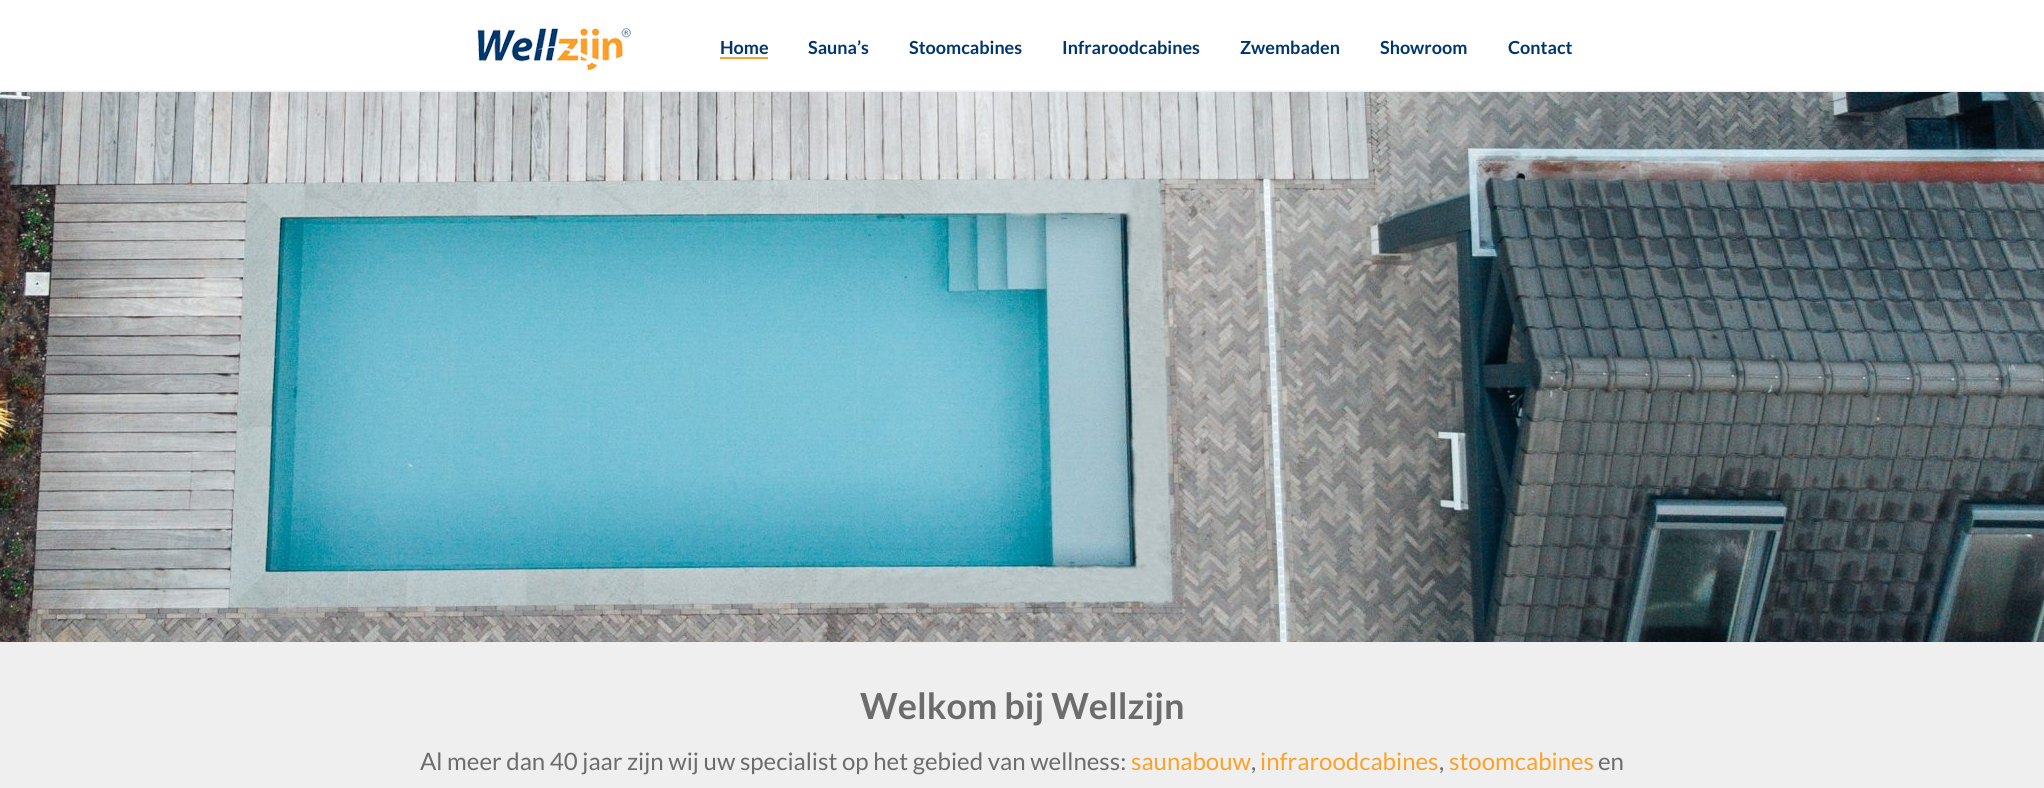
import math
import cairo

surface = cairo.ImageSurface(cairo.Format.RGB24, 2044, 788)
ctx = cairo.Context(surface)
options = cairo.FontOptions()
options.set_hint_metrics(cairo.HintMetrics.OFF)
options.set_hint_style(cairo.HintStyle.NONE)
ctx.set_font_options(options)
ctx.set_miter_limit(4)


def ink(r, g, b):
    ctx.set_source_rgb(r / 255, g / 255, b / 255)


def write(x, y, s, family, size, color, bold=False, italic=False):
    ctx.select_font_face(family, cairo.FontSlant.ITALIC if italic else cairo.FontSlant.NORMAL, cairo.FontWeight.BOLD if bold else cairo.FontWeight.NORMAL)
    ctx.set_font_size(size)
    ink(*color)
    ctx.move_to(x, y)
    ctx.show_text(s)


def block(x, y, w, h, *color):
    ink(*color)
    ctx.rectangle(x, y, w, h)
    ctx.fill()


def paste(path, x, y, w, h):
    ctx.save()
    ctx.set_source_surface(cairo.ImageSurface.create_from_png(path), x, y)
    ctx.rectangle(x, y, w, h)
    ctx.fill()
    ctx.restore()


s1 = dict(family="Lato", size=18, color=(0, 54, 109), bold=True)
s2 = dict(family="Lato", size=36, color=(108, 108, 108), bold=True)
s3 = dict(family="Lato", size=24, color=(108, 108, 108))
s4 = dict(family="Lato", size=24, color=(251, 162, 42))

ink(255, 255, 255)
ctx.paint()
block(0, 90, 2044, 1, 247, 247, 247)
block(0, 91, 2044, 1, 237, 237, 237)
paste("pic1.png", 475, 25, 156, 46)
write(720, 54, "Home", **s1)
block(720, 57, 48, 2, 251, 162, 42)
write(808, 54, "Sauna’s", **s1)
write(909, 54, "Stoomcabines", **s1)
write(1062, 54, "Infraroodcabines", **s1)
write(1240, 54, "Zwembaden", **s1)
write(1380, 54, "Showroom", **s1)
write(1508, 54, "Contact", **s1)
paste("pic2.png", 0, 92, 2044, 550)
block(0, 642, 2044, 146, 239, 239, 239)
write(860, 719, "Welkom bij Wellzijn", **s2)
write(420, 770, "Al meer dan 40 jaar zijn wij uw specialist op het gebied van wellness:", **s3)
write(1131, 770, "saunabouw", **s4)
write(1251, 770, ",", **s3)
write(1260, 770, "infraroodcabines", **s4)
write(1439, 770, ",", **s3)
write(1449, 770, "stoomcabines", **s4)
write(1598, 770, "en", **s3)
surface.write_to_png("screenshot.png")
